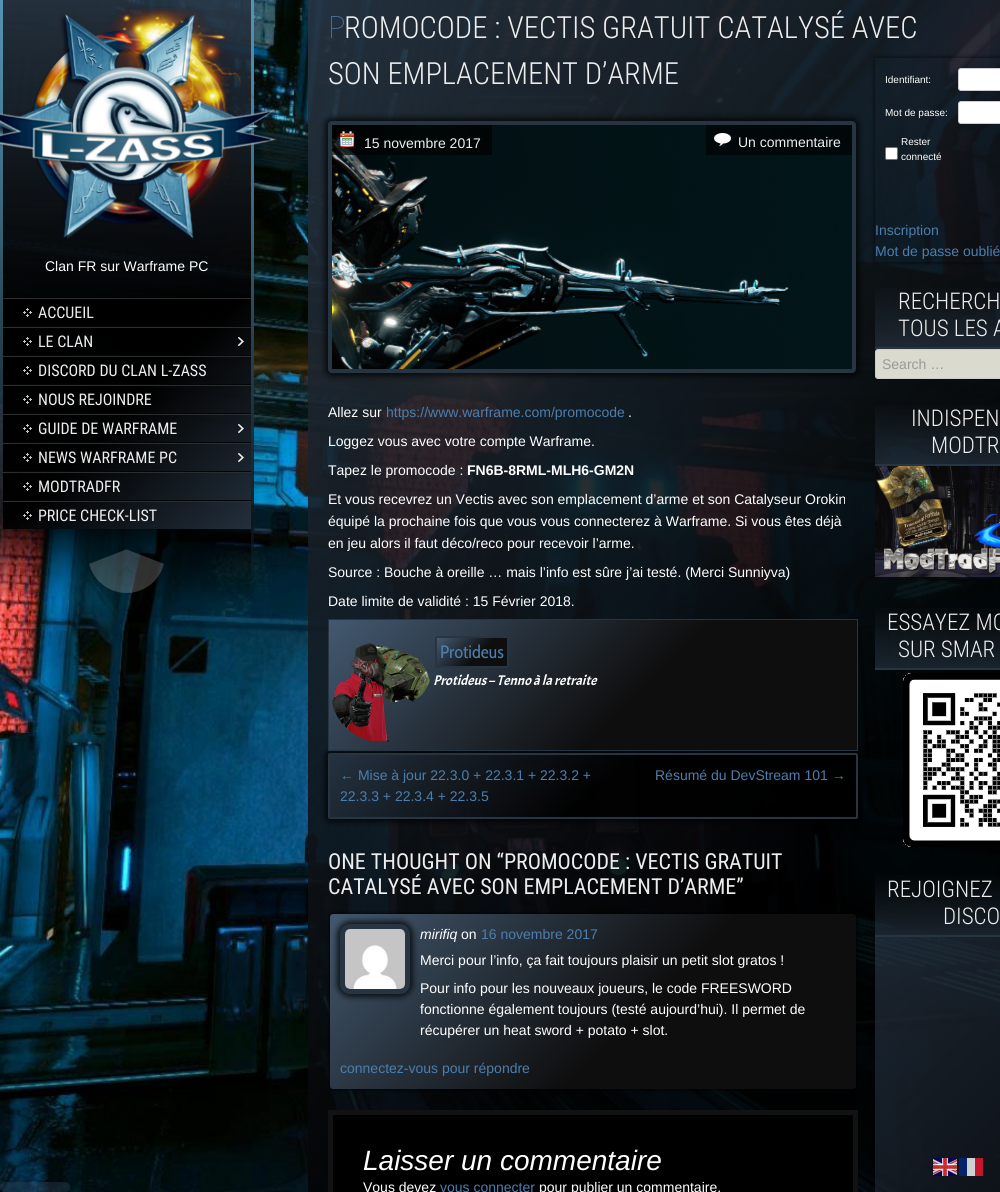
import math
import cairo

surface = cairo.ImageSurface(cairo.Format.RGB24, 1000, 1192)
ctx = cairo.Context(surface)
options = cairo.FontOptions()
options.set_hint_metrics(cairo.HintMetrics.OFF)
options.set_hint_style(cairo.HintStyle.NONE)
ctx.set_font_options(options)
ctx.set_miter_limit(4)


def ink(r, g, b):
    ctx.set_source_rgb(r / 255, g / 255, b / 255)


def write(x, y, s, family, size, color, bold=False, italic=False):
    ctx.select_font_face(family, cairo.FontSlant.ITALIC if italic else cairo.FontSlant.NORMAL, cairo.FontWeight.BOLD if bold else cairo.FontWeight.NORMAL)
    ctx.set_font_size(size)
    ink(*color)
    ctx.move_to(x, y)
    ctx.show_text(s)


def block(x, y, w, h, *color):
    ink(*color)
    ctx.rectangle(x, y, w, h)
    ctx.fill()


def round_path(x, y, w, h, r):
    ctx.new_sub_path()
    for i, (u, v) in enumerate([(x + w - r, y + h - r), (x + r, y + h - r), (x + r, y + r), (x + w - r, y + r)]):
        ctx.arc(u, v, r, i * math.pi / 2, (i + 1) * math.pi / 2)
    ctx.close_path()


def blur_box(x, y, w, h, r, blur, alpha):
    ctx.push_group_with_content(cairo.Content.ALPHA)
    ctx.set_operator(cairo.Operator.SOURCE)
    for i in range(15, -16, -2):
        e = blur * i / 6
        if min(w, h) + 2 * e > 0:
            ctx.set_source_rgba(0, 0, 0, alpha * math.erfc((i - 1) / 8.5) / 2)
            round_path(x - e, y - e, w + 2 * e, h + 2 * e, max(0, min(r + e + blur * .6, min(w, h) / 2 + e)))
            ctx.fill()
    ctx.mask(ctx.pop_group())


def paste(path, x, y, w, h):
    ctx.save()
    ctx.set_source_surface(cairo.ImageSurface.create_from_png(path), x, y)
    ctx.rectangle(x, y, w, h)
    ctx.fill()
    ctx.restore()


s1 = dict(family="Liberation Sans", size=14, color=(255, 255, 255))
s2 = dict(family="Roboto Condensed", size=16, color=(238, 237, 237))
s3 = dict(family="Noto Sans Thin", size=30.5, color=(76, 126, 173))
s4 = dict(family="Roboto Condensed Light", size=30.5, color=(238, 237, 237))
s5 = dict(family="Liberation Sans", size=14, color=(238, 237, 237))
s6 = dict(family="Liberation Sans", size=14, color=(76, 126, 173))
s7 = dict(family="Liberation Sans", size=14, color=(255, 255, 255), bold=True)
s8 = dict(family="Cabin Condensed", size=18, color=(76, 126, 173))
s9 = dict(family="Acme", size=14, color=(255, 255, 255), italic=True)
s10 = dict(family="Roboto Condensed", size=22, color=(238, 237, 237))
s11 = dict(family="Liberation Sans", size=14, color=(255, 255, 255), italic=True)
s12 = dict(family="Liberation Sans", size=28, color=(255, 255, 255), italic=True)
s13 = dict(family="Liberation Sans", size=10, color=(255, 255, 255))
s14 = dict(family="Roboto Condensed Light", size=23, color=(238, 237, 237))
s15 = dict(family="Liberation Sans", size=14, color=(153, 153, 153))

ink(255, 255, 255)
ctx.paint()
paste("pic1.png", 0, 0, 1000, 1192)
ctx.set_source_rgba(0.212, 0.275, 0.357, 0.34)
round_path(990, 0, 10, 70, 5)
ctx.fill()
paste("pic2.png", 0, 0, 254, 589)
paste("pic3.png", 0, 6, 277, 234)
write(45, 271, "Clan FR sur Warframe PC", **s1)
block(3, 298, 248, 1, 44, 45, 46)
block(3, 326, 248, 1, 4, 5, 6)
paste("pic4.png", 23, 308, 9, 9)
write(38, 318, "ACCUEIL", **s2)
paste("pic5.png", 238, 337, 6, 9)
block(3, 327, 248, 1, 44, 45, 46)
block(3, 355, 248, 1, 4, 5, 6)
paste("pic6.png", 23, 337, 9, 9)
write(38, 347, "LE CLAN", **s2)
block(3, 356, 248, 1, 44, 45, 46)
block(3, 384, 248, 1, 4, 5, 6)
paste("pic7.png", 23, 366, 9, 9)
write(38, 376, "DISCORD DU CLAN L-ZASS", **s2)
block(3, 385, 248, 1, 44, 45, 46)
block(3, 413, 248, 1, 4, 5, 6)
paste("pic8.png", 23, 395, 9, 9)
write(38, 405, "NOUS REJOINDRE", **s2)
paste("pic9.png", 238, 424, 6, 9)
block(3, 414, 248, 1, 44, 45, 46)
block(3, 442, 248, 1, 4, 5, 6)
paste("pic10.png", 23, 424, 9, 9)
write(38, 434, "GUIDE DE WARFRAME", **s2)
paste("pic11.png", 238, 453, 6, 9)
block(3, 443, 248, 1, 44, 45, 46)
block(3, 471, 248, 1, 4, 5, 6)
paste("pic12.png", 23, 453, 9, 9)
write(38, 463, "NEWS WARFRAME PC", **s2)
block(3, 472, 248, 1, 44, 45, 46)
block(3, 500, 248, 1, 4, 5, 6)
paste("pic13.png", 23, 482, 9, 9)
write(38, 492, "MODTRADFR", **s2)
block(3, 501, 248, 1, 44, 45, 46)
paste("pic14.png", 23, 511, 9, 9)
write(38, 521, "PRICE CHECK-LIST", **s2)
paste("pic15.png", 89, 549, 75, 44)
gradient = cairo.LinearGradient(70, 239, 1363, 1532)
gradient.add_color_stop_rgba(0, 0.153, 0.204, 0.259, 0.9)
gradient.add_color_stop_rgba(0.51, 0, 0, 0, 0.9)
gradient.add_color_stop_rgba(1, 0, 0, 0, 0.9)
ctx.set_source(gradient)
ctx.rectangle(308, 0, 692, 1192)
ctx.fill()
write(328, 38, "P", **s3)
write(344, 38, "ROMOCODE : VECTIS GRATUIT CATALYSÉ AVEC", **s4)
write(328, 84, "SON EMPLACEMENT D’ARME", **s4)
ink(0, 0, 0)
blur_box(325, 118, 534, 258, 7, 3, 0.75)
round_path(330, 123, 524, 248, 2)
ink(39, 52, 66)
ctx.set_line_width(4)
ctx.stroke()
paste("pic16.png", 332, 125, 520, 244)
paste("pic17.png", 332, 125, 160, 30)
write(364, 148, "15 novembre 2017", **s5)
paste("pic18.png", 706, 125, 146, 30)
write(738, 147, "Un commentaire", **s5)
write(328, 417, "Allez sur", **s1)
write(386, 417, "https://www.warframe.com/promocode", **s6)
write(628, 417, ".", **s1)
write(328, 446, "Loggez vous avec votre compte Warframe.", **s1)
write(328, 475, "Tapez le promocode :", **s1)
write(467, 475, "FN6B-8RML-MLH6-GM2N", **s7)
write(328, 504, "Et vous recevrez un Vectis avec son emplacement d’arme et son Catalyseur Orokin", **s1)
write(328, 526, "équipé la prochaine fois que vous vous connecterez à Warframe. Si vous êtes déjà", **s1)
write(328, 548, "en jeu alors il faut déco/reco pour recevoir l’arme.", **s1)
write(328, 577, "Source : Bouche à oreille … mais l’info est sûre j’ai testé. (Merci Sunniyva)", **s1)
write(328, 606, "Date limite de validité : 15 Février 2018.", **s1)
ctx.save()
ctx.set_fill_rule(cairo.FillRule.EVEN_ODD)
ctx.new_path()
ctx.move_to(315, 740)
ctx.line_to(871, 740)
ctx.line_to(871, 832)
ctx.line_to(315, 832)
ctx.close_path()
ctx.move_to(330, 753)
ctx.line_to(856, 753)
ctx.curve_to(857, 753, 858, 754, 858, 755)
ctx.line_to(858, 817)
ctx.curve_to(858, 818, 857, 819, 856, 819)
ctx.line_to(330, 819)
ctx.curve_to(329, 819, 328, 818, 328, 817)
ctx.line_to(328, 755)
ctx.curve_to(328, 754, 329, 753, 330, 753)
ctx.close_path()
ctx.clip()
ink(0, 0, 0)
blur_box(325, 750, 536, 72, 5, 3, 0.75)
ctx.restore()
gradient = cairo.LinearGradient(429, 521, 758, 850)
gradient.add_color_stop_rgba(0, 0.263, 0.349, 0.439, 1)
gradient.add_color_stop_rgba(0.58, 0.055, 0.055, 0.055, 1)
ctx.set_source(gradient)
ctx.rectangle(329, 620, 528, 130)
ctx.fill()
ctx.rectangle(328.5, 619.5, 529, 131)
ink(39, 52, 66)
ctx.set_line_width(1)
ctx.stroke()
paste("pic19.png", 332, 643, 98, 99)
gradient = cairo.LinearGradient(448, 628, 497, 677)
gradient.add_color_stop_rgba(0, 0.263, 0.349, 0.439, 1)
gradient.add_color_stop_rgba(0.58, 0.055, 0.055, 0.055, 1)
ctx.set_source(gradient)
ctx.rectangle(437, 638, 70, 28)
ctx.fill()
round_path(436, 637, 72, 30, 1)
ink(39, 52, 66)
ctx.set_line_width(2)
ctx.stroke()
write(440, 658, "Protideus", **s8)
write(433, 685, "Protideus – Tenno à la retraite", **s9)
gradient = cairo.LinearGradient(446, 639, 740, 933)
gradient.add_color_stop_rgba(0, 0.153, 0.204, 0.259, 0.9)
gradient.add_color_stop_rgba(0.51, 0, 0, 0, 0.9)
gradient.add_color_stop_rgba(1, 0, 0, 0, 0.9)
ctx.set_source(gradient)
ctx.rectangle(330, 755, 526, 62)
ctx.fill()
round_path(329, 754, 528, 64, 1)
ink(39, 52, 66)
ctx.stroke()
write(340, 780, "← Mise à jour 22.3.0 + 22.3.1 + 22.3.2 +", **s6)
write(340, 801, "22.3.3 + 22.3.4 + 22.3.5", **s6)
write(655, 780, "Résumé du DevStream 101 →", **s6)
write(328, 869, "ONE THOUGHT ON “PROMOCODE : VECTIS GRATUIT", **s10)
write(328, 894, "CATALYSÉ AVEC SON EMPLACEMENT D’ARME”", **s10)
ink(0, 0, 0)
blur_box(329, 913, 528, 177, 4, 1.5, 0.7)
gradient = cairo.LinearGradient(418, 826, 768, 1177)
gradient.add_color_stop_rgba(0, 0.263, 0.349, 0.439, 1)
gradient.add_color_stop_rgba(0.58, 0.055, 0.055, 0.055, 1)
ctx.set_source(gradient)
round_path(330, 914, 526, 175, 3)
ctx.fill()
ink(0, 0, 0)
blur_box(337, 921, 76, 76, 13, 3, 0.75)
round_path(342.5, 926.5, 65, 65, 7.5)
ink(39, 52, 66)
ctx.set_line_width(5)
ctx.stroke()
paste("pic20.png", 345, 929, 60, 60)
write(420, 939, "mirifiq", **s11)
write(461, 939, "on", **s1)
write(481, 939, "16 novembre 2017", **s6)
write(420, 965, "Merci pour l’info, ça fait toujours plaisir un petit slot gratos !", **s1)
write(420, 993, "Pour info pour les nouveaux joueurs, le code FREESWORD", **s1)
write(420, 1014, "fonctionne également toujours (testé aujourd’hui). Il permet de", **s1)
write(420, 1035, "récupérer un heat sword + potato + slot.", **s1)
write(340, 1073, "connectez-vous pour répondre", **s6)
ink(0, 0, 0)
ctx.rectangle(330.5, 1112.5, 525, 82)
ctx.fill_preserve()
ink(18, 18, 18)
ctx.stroke()
write(363, 1170, "Laisser un commentaire", **s12)
write(363, 1192, "Vous devez", **s1)
write(440, 1192, "vous connecter", **s6)
write(539, 1192, "pour publier un commentaire.", **s1)
ctx.save()
ctx.set_fill_rule(cairo.FillRule.EVEN_ODD)
ctx.new_path()
ctx.move_to(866, 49)
ctx.line_to(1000, 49)
ctx.line_to(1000, 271)
ctx.line_to(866, 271)
ctx.close_path()
ctx.move_to(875, 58)
ctx.line_to(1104, 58)
ctx.line_to(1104, 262)
ctx.line_to(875, 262)
ctx.close_path()
ctx.clip()
ink(0, 0, 0)
blur_box(875, 58, 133, 204, 0, 2.5, 0.75)
ctx.restore()
write(885, 83, "Identifiant:", **s13)
round_path(958.5, 68.5, 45, 22, 2.5)
ctx.fill_preserve()
ink(204, 204, 204)
ctx.set_line_width(1)
ctx.stroke()
write(885, 116, "Mot de passe:", **s13)
round_path(958.5, 101.5, 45, 22, 2.5)
ctx.fill_preserve()
ink(204, 204, 204)
ctx.stroke()
ink(255, 255, 255)
round_path(885.5, 147.5, 12, 12, 1.5)
ctx.fill_preserve()
ink(118, 118, 118)
ctx.stroke()
write(901, 145, "Rester", **s13)
write(901, 160, "connecté", **s13)
write(875, 235, "Inscription", **s6)
write(875, 256, "Mot de passe oublié", **s6)
gradient = cairo.LinearGradient(990, 283, 990, 347)
gradient.add_color_stop_rgba(0, 0.153, 0.204, 0.259, 0)
gradient.add_color_stop_rgba(1, 0.153, 0.204, 0.259, 0.65)
ctx.set_source(gradient)
ctx.rectangle(875, 288, 125, 59)
ctx.fill()
block(875, 347, 125, 2, 39, 52, 66)
write(898, 309, "RECHERCH", **s14)
write(898, 336, "TOUS LES A", **s14)
ink(219, 218, 207)
round_path(875.5, 349.5, 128, 29, 2.5)
ctx.fill_preserve()
ink(204, 204, 204)
ctx.stroke()
write(882, 369, "Search …", **s15)
gradient = cairo.LinearGradient(990, 400, 990, 464)
gradient.add_color_stop_rgba(0, 0.153, 0.204, 0.259, 0)
gradient.add_color_stop_rgba(1, 0.153, 0.204, 0.259, 0.65)
ctx.set_source(gradient)
ctx.rectangle(875, 405, 125, 59)
ctx.fill()
block(875, 464, 125, 2, 39, 52, 66)
write(911, 426, "INDISPEN", **s14)
write(931, 453, "MODTR", **s14)
paste("pic21.png", 875, 466, 125, 111)
gradient = cairo.LinearGradient(990, 604, 990, 668)
gradient.add_color_stop_rgba(0, 0.153, 0.204, 0.259, 0)
gradient.add_color_stop_rgba(1, 0.153, 0.204, 0.259, 0.65)
ctx.set_source(gradient)
ctx.rectangle(875, 608, 125, 60)
ctx.fill()
block(875, 668, 125, 2, 39, 52, 66)
write(887, 630, "ESSAYEZ MO", **s14)
write(898, 657, "SUR SMAR", **s14)
paste("pic22.png", 903, 673, 97, 174)
gradient = cairo.LinearGradient(990, 871, 990, 935)
gradient.add_color_stop_rgba(0, 0.153, 0.204, 0.259, 0)
gradient.add_color_stop_rgba(1, 0.153, 0.204, 0.259, 0.65)
ctx.set_source(gradient)
ctx.rectangle(875, 875, 125, 60)
ctx.fill()
block(875, 935, 125, 2, 39, 52, 66)
write(887, 897, "REJOIGNEZ", **s14)
write(943, 924, "DISCO", **s14)
gradient = cairo.LinearGradient(795, 1017, 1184, 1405)
gradient.add_color_stop_rgba(0, 0.212, 0.275, 0.357, 0.5)
gradient.add_color_stop_rgba(1, 0.212, 0.275, 0.357, 0)
ctx.set_source(gradient)
ctx.rectangle(875, 937, 125, 255)
ctx.fill()
paste("pic23.png", 933, 1158, 24, 18)
block(959, 1158, 8, 18, 3, 35, 107)
ctx.set_source_rgba(1, 1, 1, 0.8)
ctx.rectangle(967, 1158, 8, 18)
ctx.fill()
block(975, 1158, 8, 18, 197, 23, 44)
ctx.set_source_rgba(0.212, 0.275, 0.357, 0.34)
round_path(0, 1182, 70, 10, 5)
ctx.fill()
surface.write_to_png("screenshot.png")
